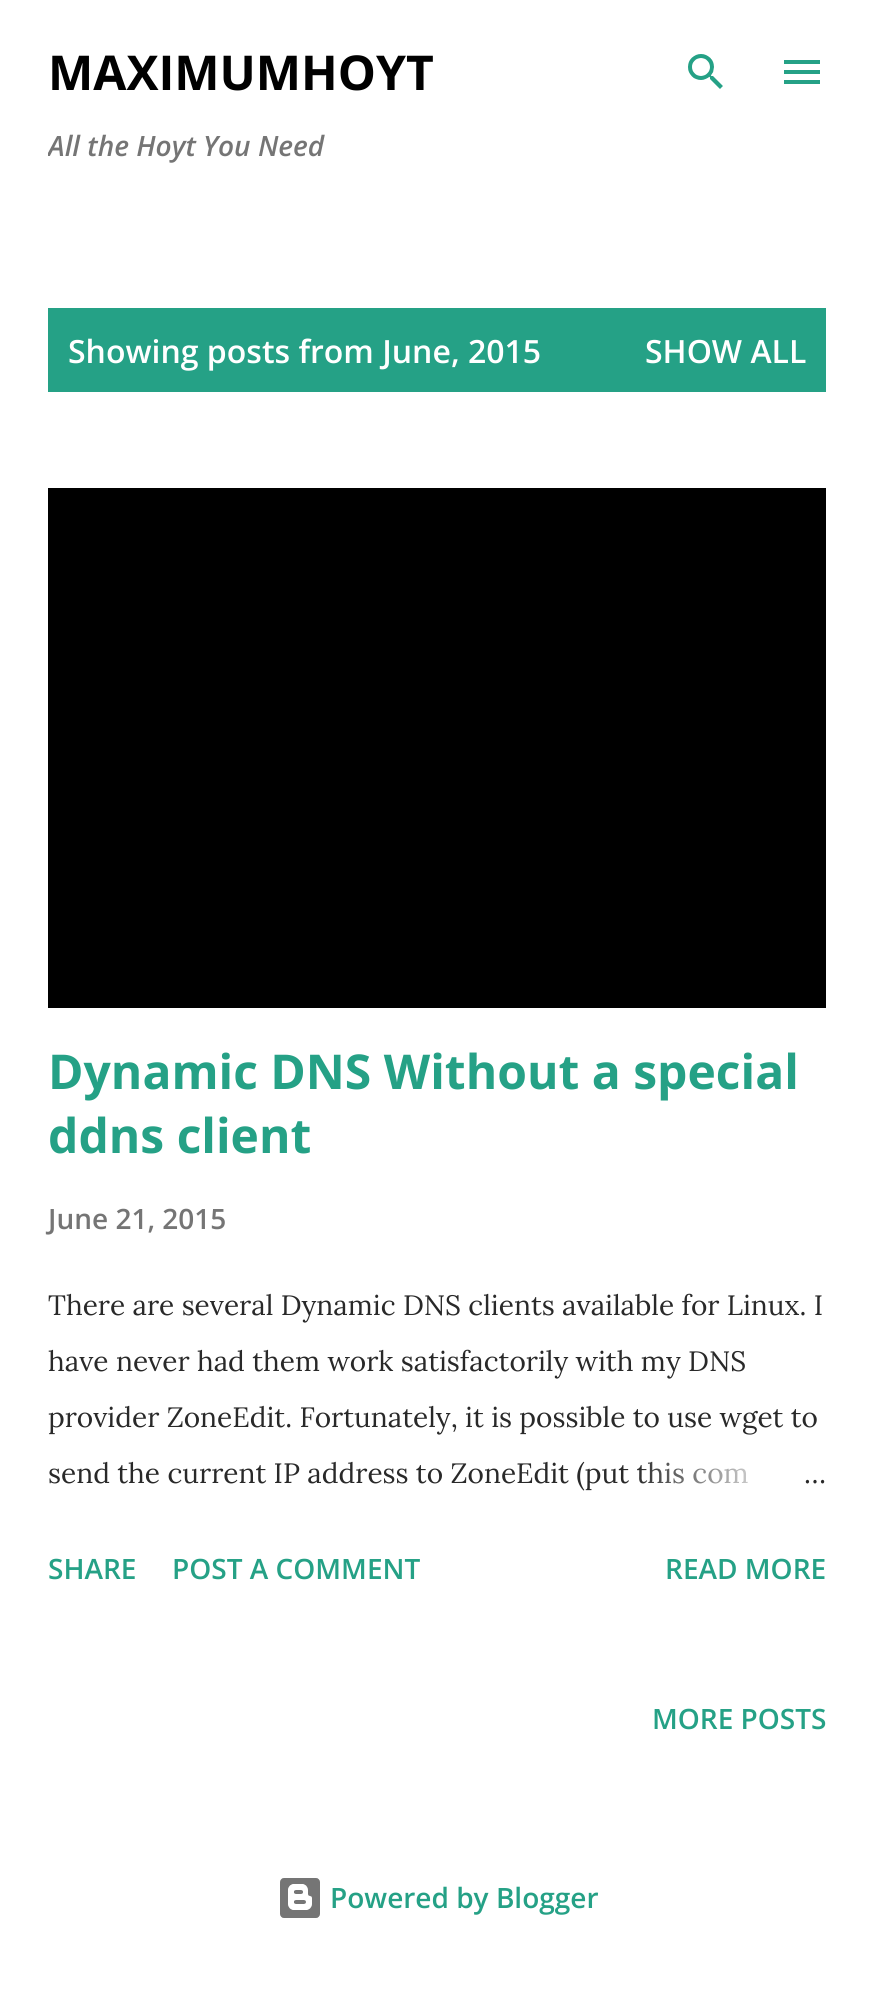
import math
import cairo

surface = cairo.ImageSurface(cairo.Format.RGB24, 874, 2010)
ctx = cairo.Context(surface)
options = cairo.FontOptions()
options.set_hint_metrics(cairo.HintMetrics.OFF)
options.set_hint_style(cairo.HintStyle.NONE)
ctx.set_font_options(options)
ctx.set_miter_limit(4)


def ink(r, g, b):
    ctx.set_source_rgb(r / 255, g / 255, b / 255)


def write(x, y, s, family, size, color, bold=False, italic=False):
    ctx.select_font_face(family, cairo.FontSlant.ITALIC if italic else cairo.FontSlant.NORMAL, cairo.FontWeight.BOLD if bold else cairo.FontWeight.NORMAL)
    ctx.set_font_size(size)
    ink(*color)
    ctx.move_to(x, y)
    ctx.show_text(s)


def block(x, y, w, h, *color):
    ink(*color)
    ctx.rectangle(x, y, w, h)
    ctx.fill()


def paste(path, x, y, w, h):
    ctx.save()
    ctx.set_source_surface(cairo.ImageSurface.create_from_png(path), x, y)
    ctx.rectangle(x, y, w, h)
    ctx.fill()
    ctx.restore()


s1 = dict(family="Open Sans", size=48, color=(0, 0, 0), bold=True)
s2 = dict(family="Open Sans SemiBold", size=28, color=(117, 117, 117), italic=True)
s3 = dict(family="Open Sans SemiBold", size=32, color=(255, 255, 255))
s4 = dict(family="Open Sans", size=48, color=(37, 161, 134), bold=True)
s5 = dict(family="Open Sans SemiBold", size=28, color=(117, 117, 117))
s6 = dict(family="Lora", size=28, color=(41, 41, 41))
s7 = dict(family="Open Sans SemiBold", size=28, color=(37, 161, 134))

ink(255, 255, 255)
ctx.paint()
write(48, 90, "MAXIMUMHOYT", **s1)
ctx.save()
ctx.rectangle(48, 48, 682, 148)
ctx.clip()
write(48, 156, "All the Hoyt You Need", **s2)
ctx.restore()
paste("pic1.png", 688, 54, 35, 35)
paste("pic2.png", 784, 60, 36, 24)
block(48, 308, 778, 84, 37, 161, 134)
write(68, 363, "Showing posts from June, 2015", **s3)
write(645, 363, "SHOW ALL", **s3)
block(48, 488, 778, 520, 0, 0, 0)
write(48, 1089, "Dynamic DNS Without a special", **s4)
write(48, 1153, "ddns client", **s4)
write(48, 1229, "June 21, 2015", **s5)
write(48, 1315, "There are several Dynamic DNS clients available for Linux. I", **s6)
write(48, 1371, "have never had them work satisfactorily with my DNS", **s6)
write(48, 1427, "provider ZoneEdit. Fortunately, it is possible to use wget to", **s6)
write(48, 1483, "send the current IP address to ZoneEdit (put this com", **s6)
gradient = cairo.LinearGradient(826, 1474, 634, 1474)
gradient.add_color_stop_rgba(0, 1, 1, 1, 1)
gradient.add_color_stop_rgba(0.2, 1, 1, 1, 1)
gradient.add_color_stop_rgba(1, 1, 1, 1, 0)
ctx.set_source(gradient)
ctx.rectangle(637, 1462, 111, 22)
ctx.fill()
write(804, 1483, "…", **s6)
write(48, 1579, "SHARE", **s7)
write(172, 1579, "POST A COMMENT", **s7)
write(665, 1579, "READ MORE", **s7)
write(652, 1729, "MORE POSTS", **s7)
paste("pic3.png", 280, 1878, 40, 40)
write(330, 1908, "Powered by Blogger", **s7)
surface.write_to_png("screenshot.png")
